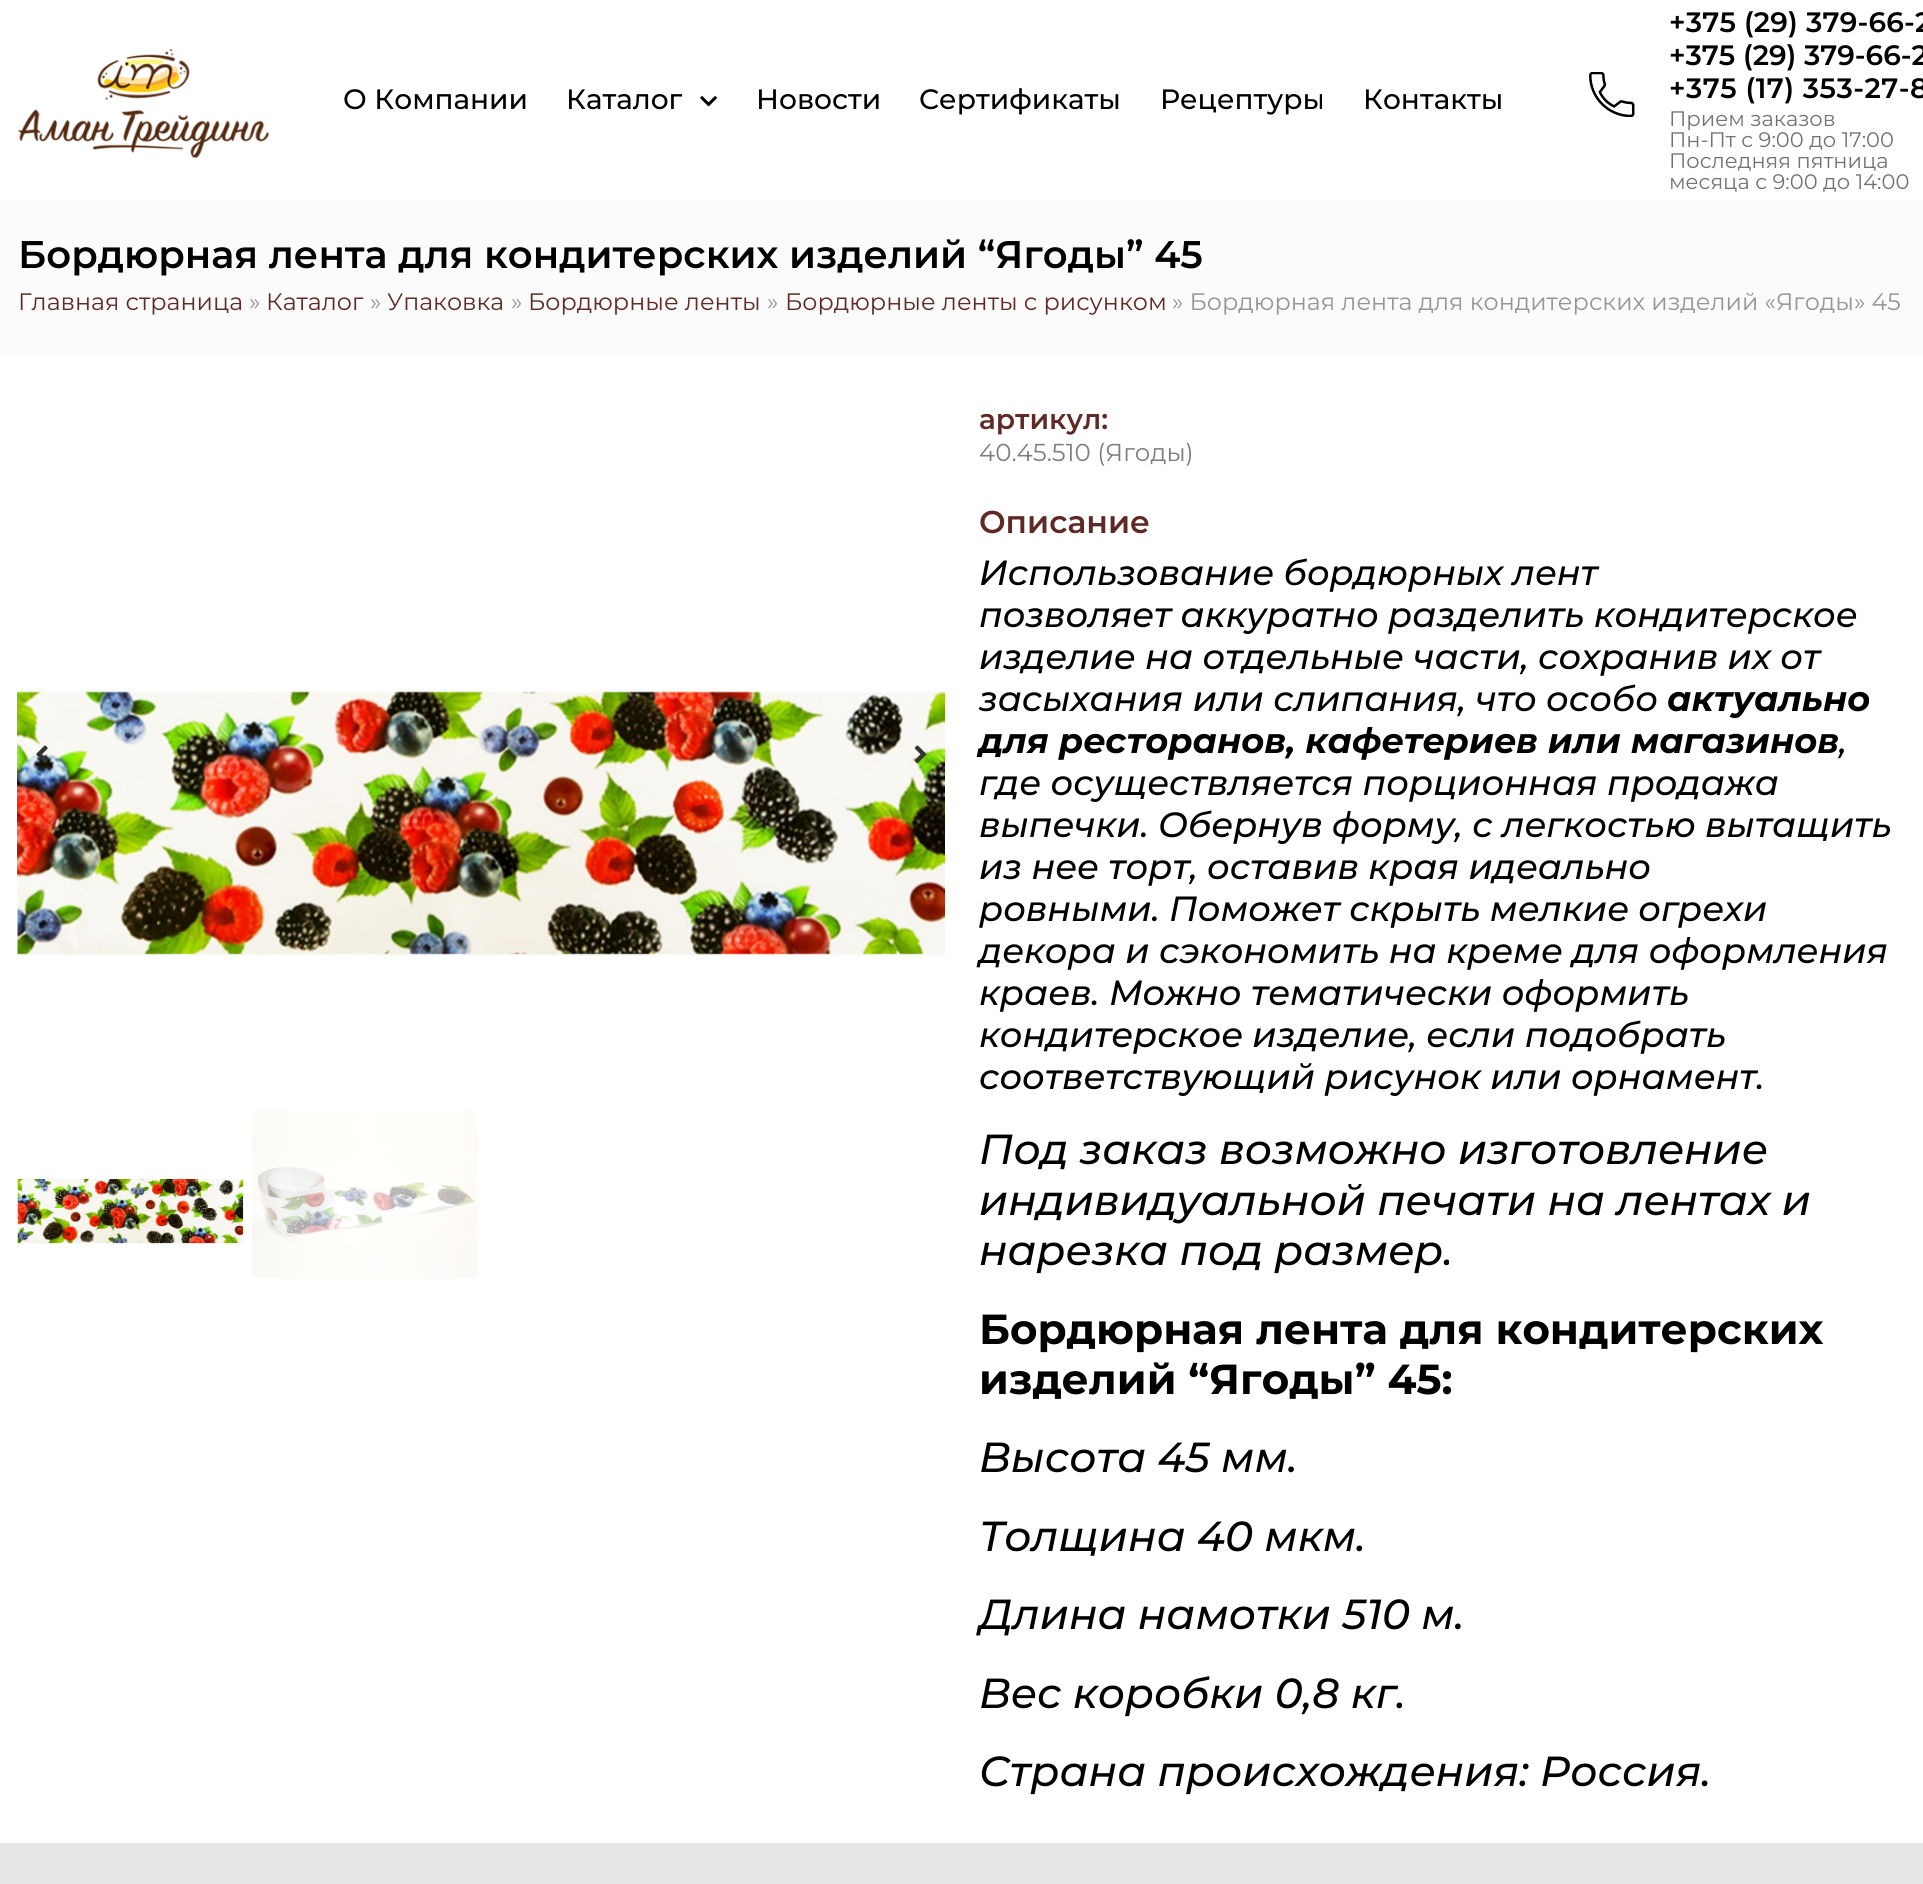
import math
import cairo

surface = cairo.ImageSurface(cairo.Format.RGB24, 1923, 1884)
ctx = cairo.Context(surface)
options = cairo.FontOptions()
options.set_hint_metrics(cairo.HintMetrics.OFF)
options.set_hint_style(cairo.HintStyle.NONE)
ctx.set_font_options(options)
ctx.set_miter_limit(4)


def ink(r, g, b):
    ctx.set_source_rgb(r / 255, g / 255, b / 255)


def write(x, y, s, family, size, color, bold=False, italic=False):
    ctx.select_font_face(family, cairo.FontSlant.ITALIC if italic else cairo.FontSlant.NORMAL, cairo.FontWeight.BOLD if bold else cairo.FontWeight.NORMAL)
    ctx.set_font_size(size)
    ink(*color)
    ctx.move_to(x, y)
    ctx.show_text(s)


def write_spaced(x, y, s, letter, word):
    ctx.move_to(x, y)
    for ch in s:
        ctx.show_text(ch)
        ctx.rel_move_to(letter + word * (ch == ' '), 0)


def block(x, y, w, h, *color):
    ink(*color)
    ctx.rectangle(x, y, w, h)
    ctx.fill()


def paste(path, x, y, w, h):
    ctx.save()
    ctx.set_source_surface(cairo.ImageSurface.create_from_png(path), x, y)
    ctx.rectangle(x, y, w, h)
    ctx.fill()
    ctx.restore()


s1 = dict(family="Montserrat Medium", size=28, color=(0, 0, 0))
s2 = dict(family="Montserrat SemiBold", size=28, color=(0, 0, 0))
s3 = dict(family="Montserrat", size=21, color=(114, 114, 114))
s4 = dict(family="Montserrat SemiBold", size=38.5, color=(0, 0, 0))
s5 = dict(family="Montserrat", size=23.8, color=(95, 41, 37))
s6 = dict(family="Montserrat", size=23.8, color=(149, 149, 149))
s7 = dict(family="Montserrat SemiBold", size=28, color=(95, 41, 37))
s8 = dict(family="Montserrat", size=24.5, color=(126, 126, 126))
s9 = dict(family="Montserrat SemiBold", size=31.5, color=(95, 41, 37))
s10 = dict(family="Montserrat Medium", size=35, color=(0, 0, 0), italic=True)
s11 = dict(family="Montserrat", size=35, color=(0, 0, 0), bold=True, italic=True)
s12 = dict(family="Montserrat Medium", size=42, color=(0, 0, 0), italic=True)
s13 = dict(family="Montserrat", size=42, color=(0, 0, 0), bold=True)

ink(255, 255, 255)
ctx.paint()
paste("pic1.png", 18, 49, 251, 109)
write(343, 109, "О Компании", **s1)
write(566, 109, "Каталог", **s1)
paste("pic2.png", 700, 96, 17, 11)
write(756, 109, "Новости", **s1)
write(919, 109, "Сертификаты", **s1)
write(1160, 109, "Рецептуры", **s1)
write(1363, 109, "Контакты", **s1)
paste("pic3.png", 1589, 72, 46, 45)
ctx.select_font_face("Montserrat SemiBold")
write_spaced(1669, 32, "+375 (29) 379-66-2", 0.2, 0)
write(1669, 65, "+375 (29) 379-66-2", **s2)
write_spaced(1669, 98, "+375 (17) 353-27-8", 0.5, 0)
write(1669, 126, "Прием заказов", **s3)
write(1669, 147, "Пн-Пт с 9:00 до 17:00", **s3)
write(1669, 168, "Последняя пятница", **s3)
write(1669, 189, "месяца с 9:00 до 14:00", **s3)
block(0, 201, 1923, 153, 251, 251, 251)
write(18, 268, "Бордюрная лента для кондитерских изделий “Ягоды” 45", **s4)
write(18, 310, "Главная страница", **s5)
write(249, 310, "»", **s6)
write(266, 310, "Каталог", **s5)
write(370, 310, "»", **s6)
write(387, 310, "Упаковка", **s5)
write(511, 310, "»", **s6)
write(528, 310, "Бордюрные ленты", **s5)
write(767, 310, "»", **s6)
write(785, 310, "Бордюрные ленты с рисунком", **s5)
write(1172, 310, "» Бордюрная лента для кондитерских изделий «Ягоды» 45", **s6)
paste("pic4.png", 17, 688, 928, 268)
paste("pic5.png", 36, 745, 12, 18)
paste("pic6.png", 914, 745, 13, 18)
paste("pic7.png", 17, 1178, 227, 66)
paste("pic8.png", 252, 1110, 226, 169)
write(979, 429, "артикул:", **s7)
write(979, 461, "40.45.510 (Ягоды)", **s8)
write(979, 533, "Описание", **s9)
write(979, 585, "Использование бордюрных лент", **s10)
write(979, 627, "позволяет аккуратно разделить кондитерское", **s10)
write(979, 669, "изделие на отдельные части, сохранив их от", **s10)
write(979, 711, "засыхания или слипания, что особо", **s10)
write(1667, 711, "актуально", **s11)
write(979, 753, "для ресторанов, кафетериев или магазинов", **s11)
write(1839, 753, ",", **s10)
write(979, 795, "где осуществляется порционная продажа", **s10)
write(979, 837, "выпечки. Обернув форму, с легкостью вытащить", **s10)
write(979, 879, "из нее торт, оставив края идеально", **s10)
write(979, 921, "ровными. Поможет скрыть мелкие огрехи", **s10)
write(979, 963, "декора и сэкономить на креме для оформления", **s10)
write(979, 1005, "краев. Можно тематически оформить", **s10)
write(979, 1047, "кондитерское изделие, если подобрать", **s10)
write(979, 1089, "соответствующий рисунок или орнамент.", **s10)
write(979, 1164, "Под заказ возможно изготовление", **s12)
write(979, 1215, "индивидуальной печати на лентах и", **s12)
write(979, 1265, "нарезка под размер.", **s12)
write(979, 1344, "Бордюрная лента для кондитерских", **s13)
write(979, 1394, "изделий “Ягоды” 45:", **s13)
write(979, 1472, "Высота 45 мм.", **s12)
write(979, 1551, "Толщина 40 мкм.", **s12)
write(979, 1629, "Длина намотки 510 м.", **s12)
write(979, 1708, "Вес коробки 0,8 кг.", **s12)
write(979, 1786, "Страна происхождения: Россия.", **s12)
block(0, 1843, 1923, 41, 231, 231, 231)
surface.write_to_png("screenshot.png")
